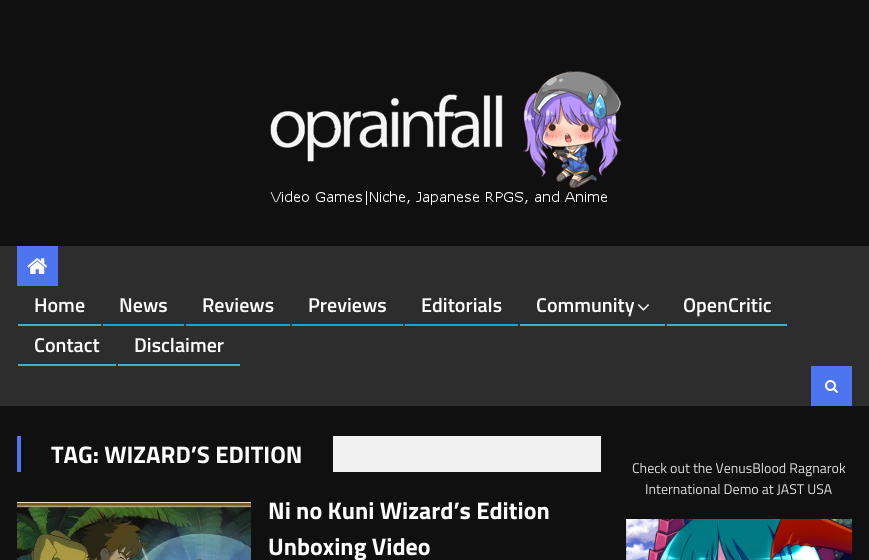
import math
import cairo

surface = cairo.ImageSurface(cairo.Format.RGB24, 869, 560)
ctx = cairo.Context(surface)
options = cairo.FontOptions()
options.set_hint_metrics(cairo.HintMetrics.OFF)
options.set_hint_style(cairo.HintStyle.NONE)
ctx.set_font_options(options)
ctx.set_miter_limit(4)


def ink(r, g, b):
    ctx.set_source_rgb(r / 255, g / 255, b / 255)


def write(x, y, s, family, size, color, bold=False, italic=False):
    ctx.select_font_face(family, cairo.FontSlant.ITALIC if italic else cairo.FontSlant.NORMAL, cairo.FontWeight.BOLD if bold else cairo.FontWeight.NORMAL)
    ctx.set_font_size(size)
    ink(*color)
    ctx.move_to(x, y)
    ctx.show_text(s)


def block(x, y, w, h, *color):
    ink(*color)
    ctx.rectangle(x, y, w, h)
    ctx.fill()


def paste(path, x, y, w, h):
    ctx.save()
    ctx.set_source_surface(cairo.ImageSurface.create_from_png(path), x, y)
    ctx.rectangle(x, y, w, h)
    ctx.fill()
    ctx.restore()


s1 = dict(family="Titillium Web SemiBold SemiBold", size=20, color=(255, 255, 255))
s2 = dict(family="Titillium Web", size=24, color=(255, 255, 255), bold=True)
s3 = dict(family="Titillium Web", size=14, color=(223, 223, 223))

ink(16, 16, 16)
ctx.paint()
paste("pic1.png", 270, 71, 352, 134)
block(0, 246, 869, 160, 45, 45, 45)
block(17, 246, 41, 40, 76, 117, 239)
paste("pic2.png", 27, 258, 21, 16)
block(18, 324, 83, 2, 50, 179, 211)
write(34, 312, "Home", **s1)
block(103, 324, 81, 2, 0, 169, 224)
write(119, 312, "News", **s1)
block(186, 324, 104, 2, 0, 169, 224)
write(202, 312, "Reviews", **s1)
block(292, 324, 111, 2, 0, 169, 224)
write(308, 312, "Previews", **s1)
block(405, 324, 113, 2, 0, 169, 224)
write(421, 312, "Editorials", **s1)
block(520, 324, 145, 2, 50, 179, 211)
write(536, 312, "Community", **s1)
paste("pic3.png", 637, 304, 12, 7)
block(667, 324, 120, 2, 50, 179, 211)
write(683, 312, "OpenCritic", **s1)
block(18, 364, 98, 2, 50, 179, 211)
write(34, 352, "Contact", **s1)
block(118, 364, 122, 2, 50, 179, 211)
write(134, 352, "Disclaimer", **s1)
block(811, 366, 41, 40, 76, 117, 239)
paste("pic4.png", 825, 380, 13, 13)
block(333, 436, 268, 36, 241, 241, 241)
block(17, 436, 4, 36, 76, 117, 239)
write(51, 463, "TAG: WIZARD’S EDITION", **s2)
paste("pic5.png", 17, 502, 234, 58)
write(268, 519, "Ni no Kuni Wizard’s Edition", **s2)
write(268, 555, "Unboxing Video", **s2)
write(632, 473, "Check out the VenusBlood Ragnarok", **s3)
write(645, 494, "International Demo at JAST USA", **s3)
paste("pic6.png", 626, 519, 226, 41)
surface.write_to_png("screenshot.png")
